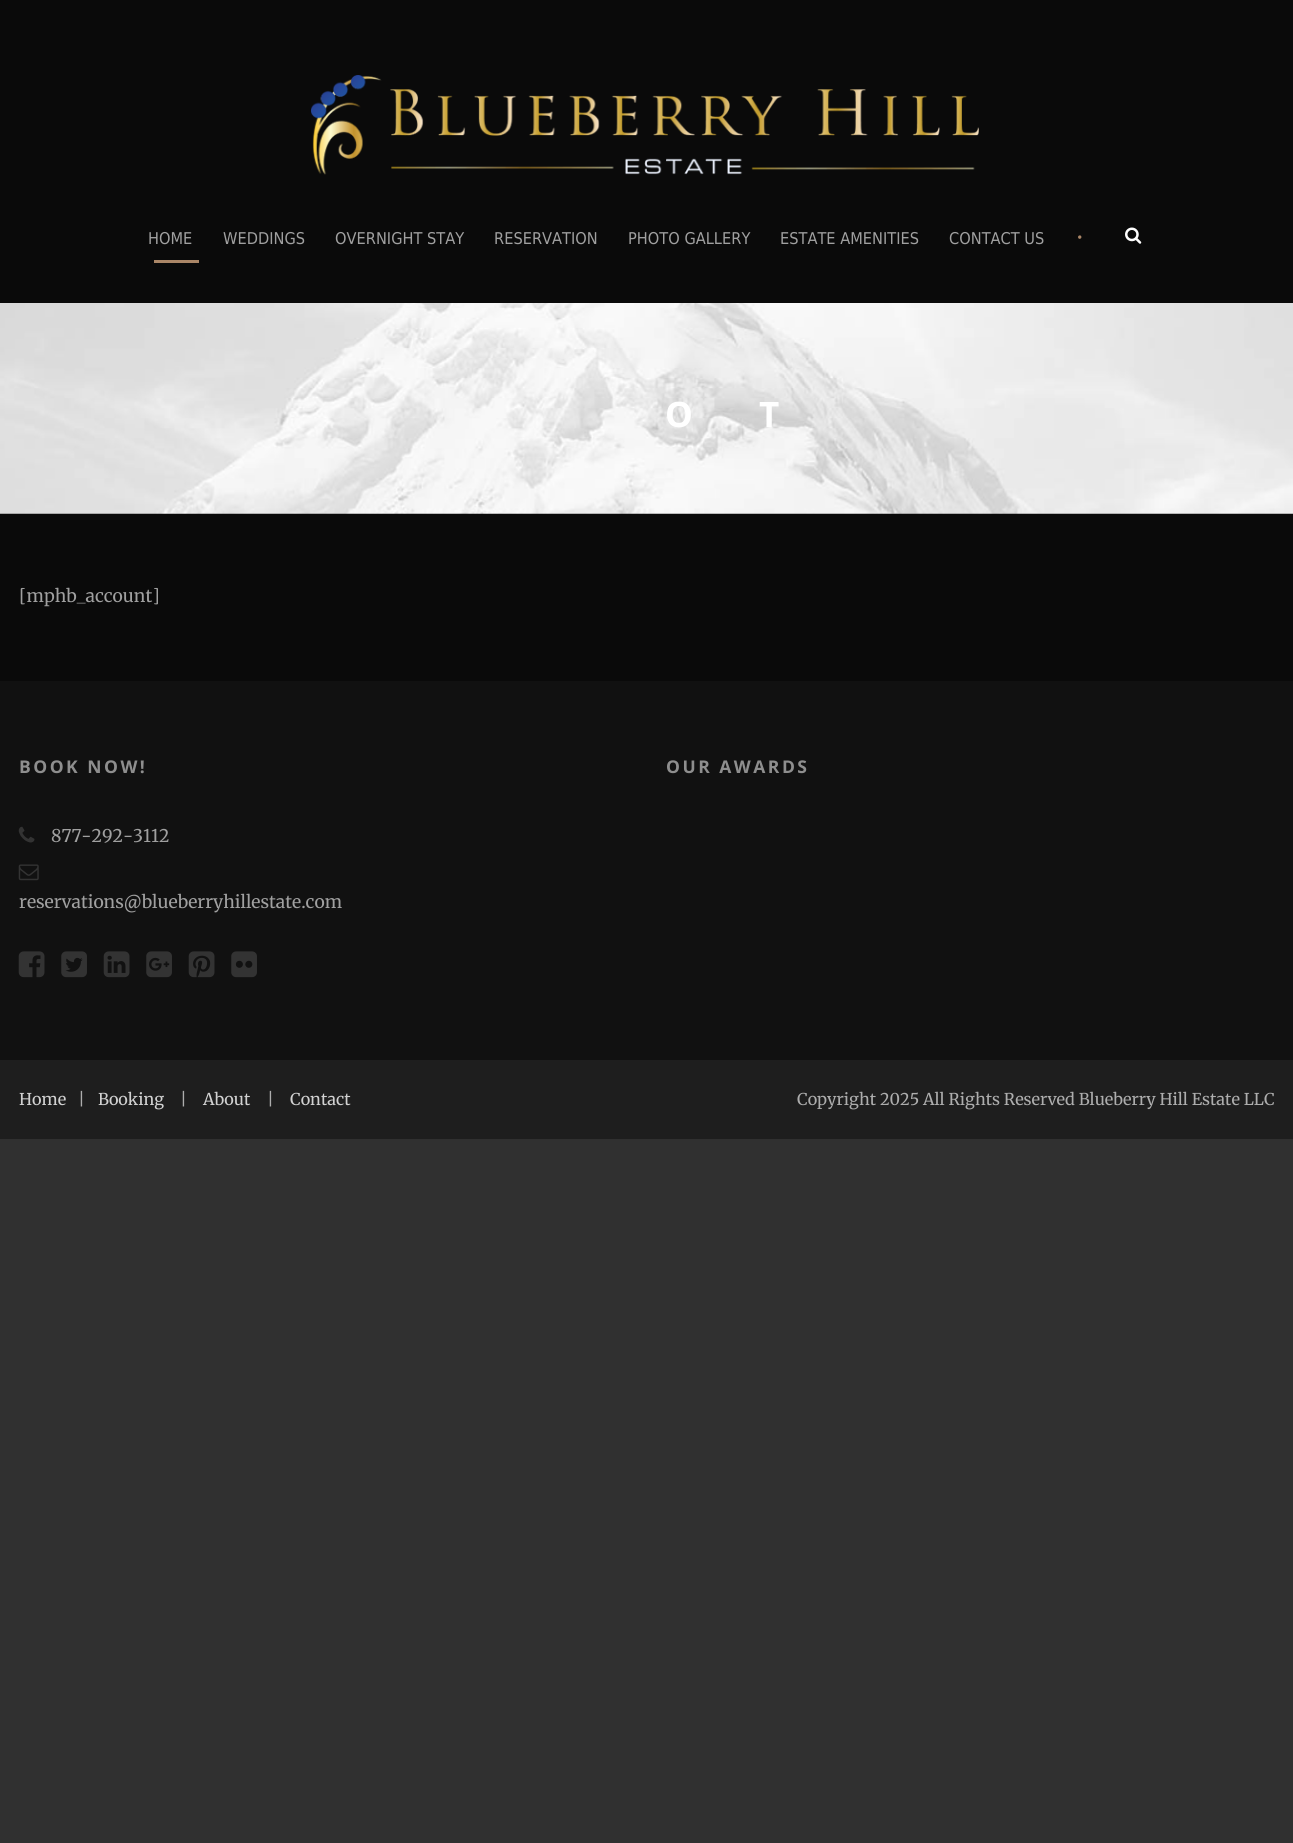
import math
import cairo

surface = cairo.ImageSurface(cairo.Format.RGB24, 1293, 1843)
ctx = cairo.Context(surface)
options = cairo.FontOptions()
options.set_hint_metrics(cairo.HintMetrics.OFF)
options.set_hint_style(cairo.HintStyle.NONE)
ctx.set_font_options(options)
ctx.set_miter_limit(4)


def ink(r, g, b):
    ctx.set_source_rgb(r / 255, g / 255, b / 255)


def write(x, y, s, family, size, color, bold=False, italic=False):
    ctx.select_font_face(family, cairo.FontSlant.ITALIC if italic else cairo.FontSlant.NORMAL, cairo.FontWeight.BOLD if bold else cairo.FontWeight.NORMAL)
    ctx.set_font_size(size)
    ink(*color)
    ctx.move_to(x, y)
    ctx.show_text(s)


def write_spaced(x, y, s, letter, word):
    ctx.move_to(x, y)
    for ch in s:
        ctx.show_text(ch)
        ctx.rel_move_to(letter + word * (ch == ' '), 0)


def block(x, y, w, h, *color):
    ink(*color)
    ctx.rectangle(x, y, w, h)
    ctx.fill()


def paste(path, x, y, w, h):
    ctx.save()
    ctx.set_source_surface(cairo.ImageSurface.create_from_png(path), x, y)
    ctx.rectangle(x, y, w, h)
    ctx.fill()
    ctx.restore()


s1 = dict(family="DejaVu Sans", size=16.25, color=(160, 160, 160))
s2 = dict(family="Merriweather", size=17.5, color=(170, 134, 103))
s3 = dict(family="Merriweather", size=17.5, color=(160, 160, 160))
s4 = dict(family="Merriweather", size=16.25, color=(209, 209, 209))
s5 = dict(family="Merriweather", size=16.25, color=(173, 173, 173))

ink(48, 48, 48)
ctx.paint()
block(0, 0, 1293, 681, 10, 10, 10)
paste("pic1.png", 311, 75, 668, 100)
write(148, 244, "HOME", **s1)
write(223, 244, "WEDDINGS", **s1)
write(335, 244, "OVERNIGHT STAY", **s1)
write(494, 244, "RESERVATION", **s1)
write(628, 244, "PHOTO GALLERY", **s1)
write(780, 244, "ESTATE AMENITIES", **s1)
write(949, 244, "CONTACT US", **s1)
write(1076, 243, "•", **s2)
paste("pic2.png", 1125, 227, 17, 17)
block(154, 260, 45, 3, 170, 134, 103)
paste("pic3.png", 0, 303, 1293, 211)
ctx.select_font_face("Open Sans", cairo.FontSlant.NORMAL, cairo.FontWeight.BOLD)
ctx.set_font_size(35)
ink(255, 255, 255)
write_spaced(665, 427, "O", 4, 0)
write_spaced(759, 427, "T", 4, 0)
write(19, 602, "[mphb_account]", **s3)
block(0, 681, 1293, 379, 17, 17, 17)
ctx.select_font_face("Open Sans", cairo.FontSlant.NORMAL, cairo.FontWeight.BOLD)
ink(142, 142, 142)
write_spaced(19, 773, "BOOK NOW!", 2.5, 0)
paste("pic4.png", 18, 826, 17, 17)
write(51, 842, "877-292-3112", **s3)
paste("pic5.png", 18, 864, 21, 17)
write(19, 908, "reservations@blueberryhillestate.com", **s3)
paste("pic6.png", 18, 951, 27, 27)
paste("pic7.png", 61, 951, 26, 27)
paste("pic8.png", 103, 951, 27, 27)
paste("pic9.png", 146, 951, 26, 27)
paste("pic10.png", 188, 951, 27, 27)
paste("pic11.png", 231, 951, 26, 27)
ctx.select_font_face("Open Sans", cairo.FontSlant.NORMAL, cairo.FontWeight.BOLD)
ink(142, 142, 142)
write_spaced(666, 773, "OUR AWARDS", 2.5, 0)
block(0, 1060, 1293, 79, 30, 30, 30)
write(19, 1105, "Home", **s4)
write(78, 1105, "|", **s5)
write(98, 1105, "Booking", **s4)
write(180, 1105, "|", **s5)
write(203, 1105, "About", **s4)
write(267, 1105, "|", **s5)
write(290, 1105, "Contact", **s4)
write(797, 1105, "Copyright 2025 All Rights Reserved Blueberry Hill Estate LLC", **s5)
surface.write_to_png("screenshot.png")
